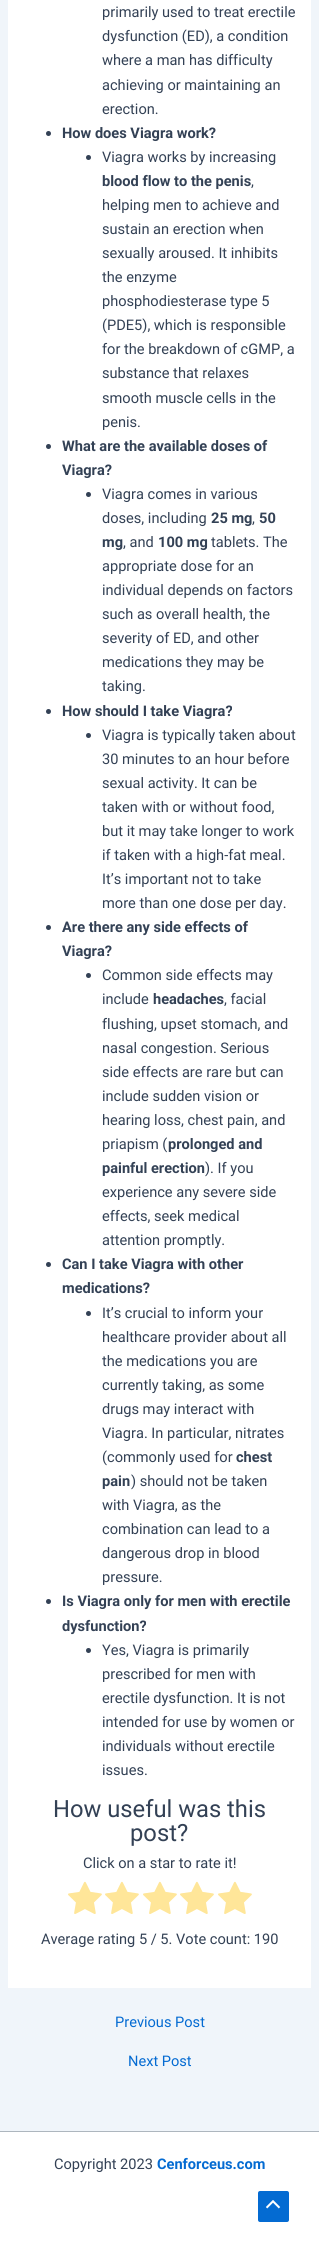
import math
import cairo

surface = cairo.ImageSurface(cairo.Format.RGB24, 319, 2252)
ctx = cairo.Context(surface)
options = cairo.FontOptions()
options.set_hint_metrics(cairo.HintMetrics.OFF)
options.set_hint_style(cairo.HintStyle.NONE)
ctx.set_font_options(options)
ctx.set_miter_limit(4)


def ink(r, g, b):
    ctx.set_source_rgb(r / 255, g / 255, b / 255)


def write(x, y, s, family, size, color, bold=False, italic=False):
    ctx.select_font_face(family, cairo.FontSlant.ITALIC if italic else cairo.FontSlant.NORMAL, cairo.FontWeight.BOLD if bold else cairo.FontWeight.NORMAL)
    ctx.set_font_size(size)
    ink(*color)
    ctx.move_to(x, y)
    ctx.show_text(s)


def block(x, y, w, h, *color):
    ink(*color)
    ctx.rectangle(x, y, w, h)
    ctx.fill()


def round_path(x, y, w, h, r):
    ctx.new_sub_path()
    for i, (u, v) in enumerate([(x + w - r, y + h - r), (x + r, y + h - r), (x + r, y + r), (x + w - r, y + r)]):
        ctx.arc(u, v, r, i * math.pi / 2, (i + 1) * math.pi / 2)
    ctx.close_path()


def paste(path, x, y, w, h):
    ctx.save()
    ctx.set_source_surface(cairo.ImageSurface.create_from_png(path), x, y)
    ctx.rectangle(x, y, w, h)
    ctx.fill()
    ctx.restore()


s1 = dict(family="Roboto", size=14.6, color=(51, 65, 85))
s2 = dict(family="Roboto", size=14.6, color=(51, 65, 85), bold=True)
s3 = dict(family="Roboto", size=23.75, color=(51, 65, 85))
s4 = dict(family="Roboto", size=14.6, color=(4, 107, 210))
s5 = dict(family="Roboto", size=14.6, color=(4, 107, 210), bold=True)

ink(240, 245, 250)
ctx.paint()
block(8, 0, 303, 1988, 255, 255, 255)
write(102, 17, "primarily used to treat erectile", **s1)
write(102, 41, "dysfunction (ED), a condition", **s1)
write(102, 65, "where a man has difficulty", **s1)
write(102, 90, "achieving or maintaining an", **s1)
write(102, 114, "erection.", **s1)
ctx.new_path()
ctx.arc(48.5, 133.5, 2.5, 0, 2 * math.pi)
ctx.fill()
write(62, 138, "How does Viagra work?", **s2)
ctx.new_path()
ctx.arc(88.5, 157.5, 2.5, 0, 2 * math.pi)
ctx.fill()
write(102, 162, "Viagra works by increasing", **s1)
write(102, 186, "blood flow to the penis", **s2)
write(251, 186, ",", **s1)
write(102, 210, "helping men to achieve and", **s1)
write(102, 234, "sustain an erection when", **s1)
write(102, 258, "sexually aroused. It inhibits", **s1)
write(102, 282, "the enzyme", **s1)
write(102, 306, "phosphodiesterase type 5", **s1)
write(102, 330, "(PDE5), which is responsible", **s1)
write(102, 354, "for the breakdown of cGMP, a", **s1)
write(102, 378, "substance that relaxes", **s1)
write(102, 403, "smooth muscle cells in the", **s1)
write(102, 427, "penis.", **s1)
ctx.new_path()
ctx.arc(48.5, 446.5, 2.5, 0, 2 * math.pi)
ctx.fill()
write(62, 451, "What are the available doses of", **s2)
write(62, 475, "Viagra?", **s2)
ctx.new_path()
ctx.arc(88.5, 494.5, 2.5, 0, 2 * math.pi)
ctx.fill()
write(102, 499, "Viagra comes in various", **s1)
write(102, 523, "doses, including", **s1)
write(211, 523, "25 mg", **s2)
write(252, 523, ",", **s1)
write(259, 523, "50", **s2)
write(102, 547, "mg", **s2)
write(123, 547, ", and", **s1)
write(158, 547, "100 mg", **s2)
write(211, 547, "tablets. The", **s1)
write(102, 571, "appropriate dose for an", **s1)
write(102, 595, "individual depends on factors", **s1)
write(102, 619, "such as overall health, the", **s1)
write(102, 643, "severity of ED, and other", **s1)
write(102, 667, "medications they may be", **s1)
write(102, 691, "taking.", **s1)
ctx.new_path()
ctx.arc(48.5, 711.5, 2.5, 0, 2 * math.pi)
ctx.fill()
write(62, 716, "How should I take Viagra?", **s2)
ctx.new_path()
ctx.arc(88.5, 735.5, 2.5, 0, 2 * math.pi)
ctx.fill()
write(102, 740, "Viagra is typically taken about", **s1)
write(102, 764, "30 minutes to an hour before", **s1)
write(102, 788, "sexual activity. It can be", **s1)
write(102, 812, "taken with or without food,", **s1)
write(102, 836, "but it may take longer to work", **s1)
write(102, 860, "if taken with a high-fat meal.", **s1)
write(102, 884, "It’s important not to take", **s1)
write(102, 908, "more than one dose per day.", **s1)
ctx.new_path()
ctx.arc(48.5, 927.5, 2.5, 0, 2 * math.pi)
ctx.fill()
write(62, 932, "Are there any side effects of", **s2)
write(62, 956, "Viagra?", **s2)
ctx.new_path()
ctx.arc(88.5, 975.5, 2.5, 0, 2 * math.pi)
ctx.fill()
write(102, 980, "Common side effects may", **s1)
write(102, 1004, "include", **s1)
write(153, 1004, "headaches", **s2)
write(224, 1004, ", facial", **s1)
write(102, 1029, "flushing, upset stomach, and", **s1)
write(102, 1053, "nasal congestion. Serious", **s1)
write(102, 1077, "side effects are rare but can", **s1)
write(102, 1101, "include sudden vision or", **s1)
write(102, 1125, "hearing loss, chest pain, and", **s1)
write(102, 1149, "priapism (", **s1)
write(168, 1149, "prolonged and", **s2)
write(102, 1173, "painful erection", **s2)
write(205, 1173, "). If you", **s1)
write(102, 1197, "experience any severe side", **s1)
write(102, 1221, "effects, seek medical", **s1)
write(102, 1245, "attention promptly.", **s1)
ctx.new_path()
ctx.arc(48.5, 1264.5, 2.5, 0, 2 * math.pi)
ctx.fill()
write(62, 1269, "Can I take Viagra with other", **s2)
write(62, 1293, "medications?", **s2)
ctx.new_path()
ctx.arc(88.5, 1313.5, 2.5, 0, 2 * math.pi)
ctx.fill()
write(102, 1318, "It’s crucial to inform your", **s1)
write(102, 1342, "healthcare provider about all", **s1)
write(102, 1366, "the medications you are", **s1)
write(102, 1390, "currently taking, as some", **s1)
write(102, 1414, "drugs may interact with", **s1)
write(102, 1438, "Viagra. In particular, nitrates", **s1)
write(102, 1462, "(commonly used for", **s1)
write(236, 1462, "chest", **s2)
write(102, 1486, "pain", **s2)
write(131, 1486, ") should not be taken", **s1)
write(102, 1510, "with Viagra, as the", **s1)
write(102, 1534, "combination can lead to a", **s1)
write(102, 1558, "dangerous drop in blood", **s1)
write(102, 1582, "pressure.", **s1)
ctx.new_path()
ctx.arc(48.5, 1601.5, 2.5, 0, 2 * math.pi)
ctx.fill()
write(62, 1606, "Is Viagra only for men with erectile", **s2)
write(62, 1631, "dysfunction?", **s2)
ctx.new_path()
ctx.arc(88.5, 1650.5, 2.5, 0, 2 * math.pi)
ctx.fill()
write(102, 1655, "Yes, Viagra is primarily", **s1)
write(102, 1679, "prescribed for men with", **s1)
write(102, 1703, "erectile dysfunction. It is not", **s1)
write(102, 1727, "intended for use by women or", **s1)
write(102, 1751, "individuals without erectile", **s1)
write(102, 1775, "issues.", **s1)
write(53, 1817, "How useful was this", **s3)
write(130, 1841, "post?", **s3)
write(83, 1868, "Click on a star to rate it!", **s1)
paste("pic1.png", 68, 1881, 34, 33)
paste("pic1.png", 105, 1881, 34, 33)
paste("pic1.png", 143, 1881, 34, 33)
paste("pic1.png", 180, 1881, 34, 33)
paste("pic1.png", 218, 1881, 34, 33)
write(41, 1944, "Average rating 5 / 5. Vote count: 190", **s1)
write(115, 2027, "Previous Post", **s4)
write(128, 2066, "Next Post", **s4)
block(0, 2132, 319, 120, 255, 255, 255)
block(0, 2131, 319, 1, 173, 182, 190)
write(54, 2169, "Copyright 2023", **s1)
write(157, 2169, "Cenforceus.com", **s5)
round_path(258, 2191, 31, 31, 2)
ctx.fill()
paste("pic2.png", 266, 2200, 15, 9)
surface.write_to_png("screenshot.png")
